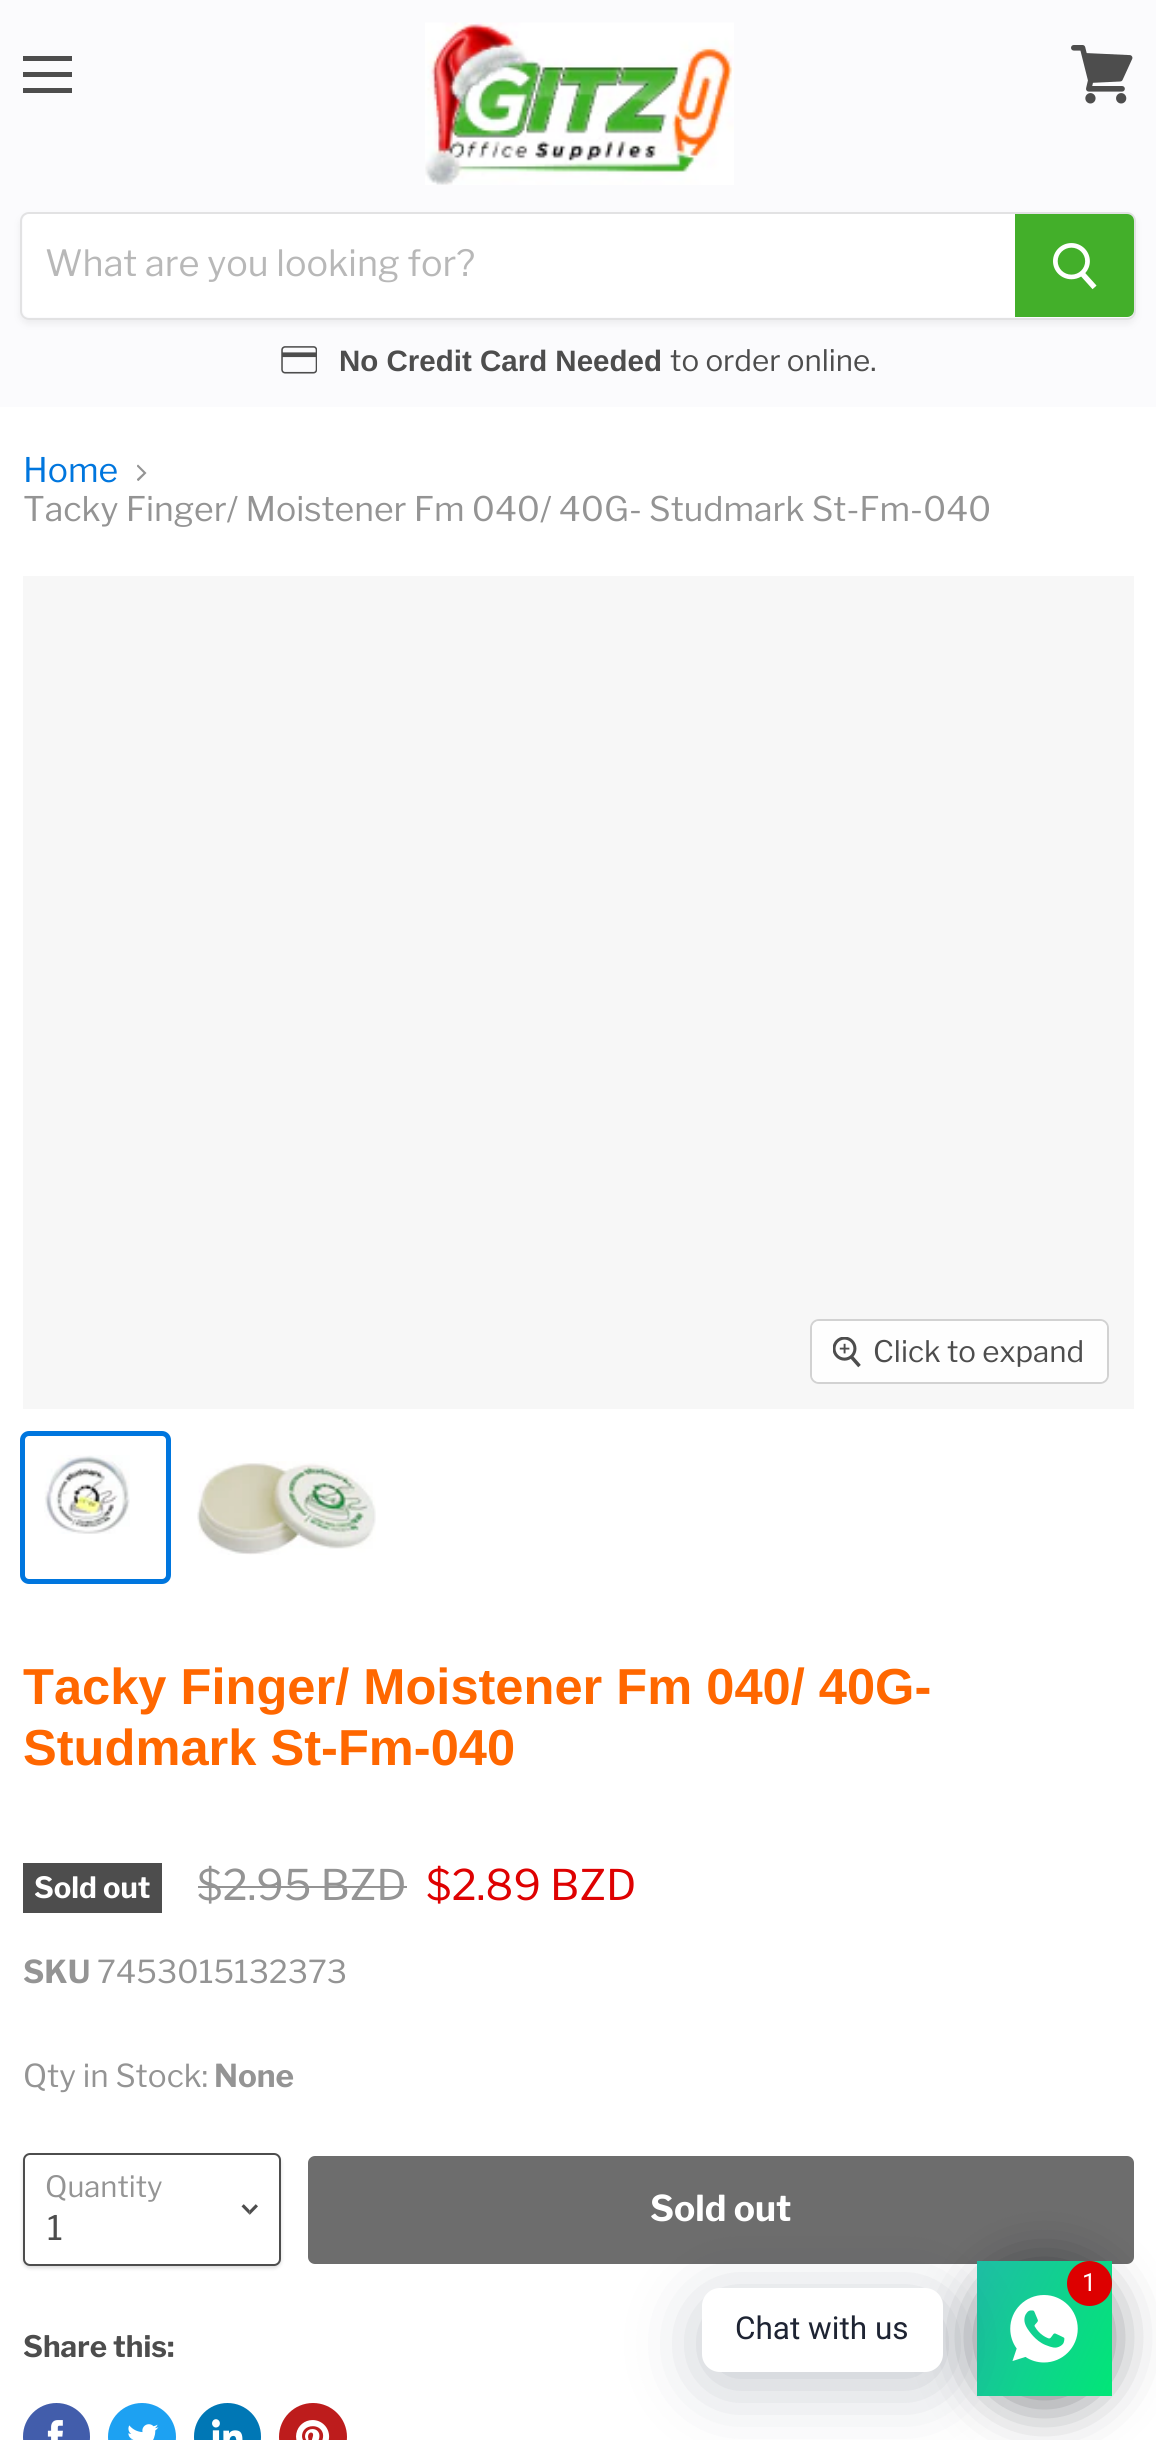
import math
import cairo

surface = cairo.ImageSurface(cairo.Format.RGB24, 1156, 2440)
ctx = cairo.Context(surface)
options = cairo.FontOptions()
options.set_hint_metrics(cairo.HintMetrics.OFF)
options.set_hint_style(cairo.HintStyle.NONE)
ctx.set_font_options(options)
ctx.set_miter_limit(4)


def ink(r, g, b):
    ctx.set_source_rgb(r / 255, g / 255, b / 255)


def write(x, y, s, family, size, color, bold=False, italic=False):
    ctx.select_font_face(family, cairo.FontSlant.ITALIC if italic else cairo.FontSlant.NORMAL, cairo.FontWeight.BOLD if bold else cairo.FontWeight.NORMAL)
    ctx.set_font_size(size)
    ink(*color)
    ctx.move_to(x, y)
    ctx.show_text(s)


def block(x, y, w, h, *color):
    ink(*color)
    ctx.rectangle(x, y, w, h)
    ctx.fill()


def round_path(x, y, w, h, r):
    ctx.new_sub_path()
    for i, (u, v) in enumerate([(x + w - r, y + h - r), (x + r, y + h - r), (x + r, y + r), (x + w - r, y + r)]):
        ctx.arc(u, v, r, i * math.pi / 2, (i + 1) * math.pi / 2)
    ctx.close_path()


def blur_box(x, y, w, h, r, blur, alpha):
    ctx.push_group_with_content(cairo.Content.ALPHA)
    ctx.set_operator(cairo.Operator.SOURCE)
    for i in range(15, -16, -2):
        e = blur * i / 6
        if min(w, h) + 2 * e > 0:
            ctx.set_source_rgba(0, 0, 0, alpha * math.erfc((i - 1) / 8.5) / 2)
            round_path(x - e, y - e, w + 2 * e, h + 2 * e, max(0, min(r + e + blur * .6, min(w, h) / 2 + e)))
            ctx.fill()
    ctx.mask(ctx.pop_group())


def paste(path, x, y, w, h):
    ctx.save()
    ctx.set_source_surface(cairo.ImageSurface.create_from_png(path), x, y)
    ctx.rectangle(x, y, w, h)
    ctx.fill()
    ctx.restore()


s1 = dict(family="Libre Franklin", size=36, color=(184, 184, 184))
s2 = dict(family="Arimo", size=29.5, color=(77, 77, 77), bold=True)
s3 = dict(family="Libre Franklin", size=29.5, color=(77, 77, 77))
s4 = dict(family="Libre Franklin", size=33.75, color=(0, 118, 222))
s5 = dict(family="Libre Franklin", size=33.75, color=(148, 148, 148))
s6 = dict(family="Arimo", size=50.6, color=(255, 103, 0), bold=True)
s7 = dict(family="Libre Franklin", size=29.25, color=(255, 255, 255), bold=True)
s8 = dict(family="Libre Franklin", size=42, color=(148, 148, 148))
s9 = dict(family="Libre Franklin", size=42, color=(222, 1, 1))
s10 = dict(family="Libre Franklin", size=31.5, color=(148, 148, 148), bold=True)
s11 = dict(family="Libre Franklin", size=31.5, color=(148, 148, 148))
s12 = dict(family="Libre Franklin", size=29.25, color=(148, 148, 148))
s13 = dict(family="Libre Franklin", size=33.75, color=(77, 77, 77))
s14 = dict(family="Libre Franklin", size=35.5, color=(255, 255, 255), bold=True)
s15 = dict(family="Libre Franklin", size=29.5, color=(77, 77, 77), bold=True)
s16 = dict(family="Roboto", size=25, color=(255, 255, 255))
s17 = dict(family="Roboto", size=31.5, color=(30, 36, 51))

ink(255, 255, 255)
ctx.paint()
block(0, 0, 1156, 407, 251, 251, 253)
block(23, 56, 49, 5, 77, 77, 77)
block(23, 72, 49, 5, 77, 77, 77)
block(23, 88, 49, 5, 77, 77, 77)
paste("pic1.png", 1071, 45, 62, 59)
paste("pic2.png", 425, 22, 309, 163)
ctx.save()
ctx.set_fill_rule(cairo.FillRule.EVEN_ODD)
ctx.new_path()
ctx.move_to(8, 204)
ctx.line_to(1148, 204)
ctx.line_to(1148, 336)
ctx.line_to(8, 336)
ctx.close_path()
ctx.move_to(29, 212)
ctx.line_to(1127, 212)
ctx.curve_to(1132, 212, 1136, 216, 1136, 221)
ctx.line_to(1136, 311)
ctx.curve_to(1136, 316, 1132, 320, 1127, 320)
ctx.line_to(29, 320)
ctx.curve_to(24, 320, 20, 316, 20, 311)
ctx.line_to(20, 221)
ctx.curve_to(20, 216, 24, 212, 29, 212)
ctx.close_path()
ctx.clip()
ink(127, 127, 127)
blur_box(20, 216, 1116, 108, 9, 3.5, 0.11)
ctx.restore()
round_path(21, 213, 1114, 106, 8)
ctx.set_source_rgba(0.498, 0.498, 0.498, 0.2)
ctx.stroke()
ink(255, 255, 255)
ctx.new_path()
ctx.move_to(30, 214)
ctx.line_to(1015, 214)
ctx.line_to(1015, 317)
ctx.line_to(30, 317)
ctx.curve_to(26, 317, 23, 314, 23, 310)
ctx.line_to(23, 221)
ctx.curve_to(23, 217, 26, 214, 30, 214)
ctx.close_path()
ctx.fill()
write(45, 276, "What are you looking for?", **s1)
ink(67, 175, 42)
ctx.new_path()
ctx.move_to(1016, 215)
ctx.line_to(1127, 215)
ctx.curve_to(1130.5, 215, 1133, 217.5, 1133, 221)
ctx.line_to(1133, 310)
ctx.curve_to(1133, 313.5, 1130.5, 316, 1127, 316)
ctx.line_to(1016, 316)
ctx.close_path()
ctx.fill_preserve()
ctx.stroke()
paste("pic3.png", 1053, 243, 44, 47)
paste("pic4.png", 281, 346, 36, 28)
write(339, 371, "No Credit Card Needed", **s2)
write(670, 371, "to order online.", **s3)
write(23, 482, "Home", **s4)
ink(148, 148, 148)
ctx.new_path()
ctx.move_to(138.5, 481)
ctx.line_to(138, 481)
ctx.line_to(137, 480)
ctx.line_to(137, 479)
ctx.line_to(143.5, 473)
ctx.line_to(137, 466.5)
ctx.line_to(137, 465.5)
ctx.line_to(138, 464.5)
ctx.line_to(146.5, 473)
ctx.close_path()
ctx.fill()
write(23, 521, "Tacky Finger/ Moistener Fm 040/ 40G- Studmark St-Fm-040", **s5)
block(23, 576, 1111, 833, 247, 247, 247)
round_path(811, 1320, 297, 63, 8)
ink(210, 210, 210)
ctx.stroke()
ctx.set_source_rgba(1, 1, 1, 0.9)
round_path(812, 1321, 295, 61, 7)
ctx.fill()
paste("pic5.png", 833, 1337, 28, 31)
write(873, 1362, "Click to expand", **s3)
round_path(22.5, 1433.5, 146, 148, 6.5)
ink(0, 118, 222)
ctx.set_line_width(5)
ctx.stroke()
paste("pic6.png", 44, 1455, 86, 79)
paste("pic7.png", 197, 1461, 179, 94)
write(23, 1704, "Tacky Finger/ Moistener Fm 040/ 40G-", **s6)
write(23, 1765, "Studmark St-Fm-040", **s6)
block(23, 1863, 139, 50, 77, 77, 77)
write(34, 1898, "Sold out", **s7)
write(197, 1900, "$2.95 BZD", **s8)
block(198, 1886, 209, 2, 148, 148, 148)
write(426, 1900, "$2.89 BZD", **s9)
write(23, 1983, "SKU", **s10)
write(97, 1983, "7453015132373", **s11)
write(23, 2087, "Qty in Stock:", **s11)
write(214, 2087, "None", **s10)
ink(0, 0, 0)
blur_box(23, 2156, 258, 112, 7, 2, 0.15)
ink(255, 255, 255)
round_path(24, 2154, 256, 111, 6)
ctx.fill_preserve()
ink(77, 77, 77)
ctx.set_line_width(2)
ctx.stroke()
write(45, 2197, "Quantity", **s12)
paste("pic8.png", 241, 2204, 17, 11)
write(47, 2240, "1", **s13)
ink(109, 109, 109)
round_path(309, 2157, 824, 106, 6)
ctx.fill_preserve()
ctx.stroke()
write(650, 2221, "Sold out", **s14)
write(23, 2357, "Share this:", **s15)
ink(66, 93, 171)
round_path(23, 2403, 67, 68, 33.5)
ctx.fill()
paste("pic9.png", 47, 2420, 16, 20)
ink(29, 161, 242)
ctx.arc(142, 2437, 34, 0, 2 * math.pi)
ctx.fill()
paste("pic10.png", 128, 2424, 31, 16)
ink(0, 119, 181)
round_path(194, 2403, 67, 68, 33.5)
ctx.fill()
paste("pic11.png", 212, 2419, 31, 21)
ink(189, 28, 28)
ctx.arc(313, 2437, 34, 0, 2 * math.pi)
ctx.fill()
paste("pic12.png", 296, 2420, 34, 20)
ink(2, 6, 16)
blur_box(977, 2270, 135, 135, 67.5, 27, 0.5)
gradient = cairo.LinearGradient(963, 2291, 1125, 2367)
gradient.add_color_stop_rgba(0, 0.118, 0.745, 0.647, 1)
gradient.add_color_stop_rgba(1, 0.004, 0.902, 0.467, 1)
ctx.set_source(gradient)
ctx.rectangle(977, 2261, 135, 135)
ctx.fill()
ink(0, 18, 46)
blur_box(702, 2302, 241, 83, 18, 36, 0.24)
paste("pic13.png", 1010, 2295, 68, 68)
ink(221, 0, 0)
ctx.arc(1089.5, 2283.5, 22.5, 0, 2 * math.pi)
ctx.fill()
write(1082, 2291, "1", **s16)
round_path(702, 2288, 241, 84, 18)
ctx.fill()
write(735, 2339, "Chat with us", **s17)
surface.write_to_png("screenshot.png")
